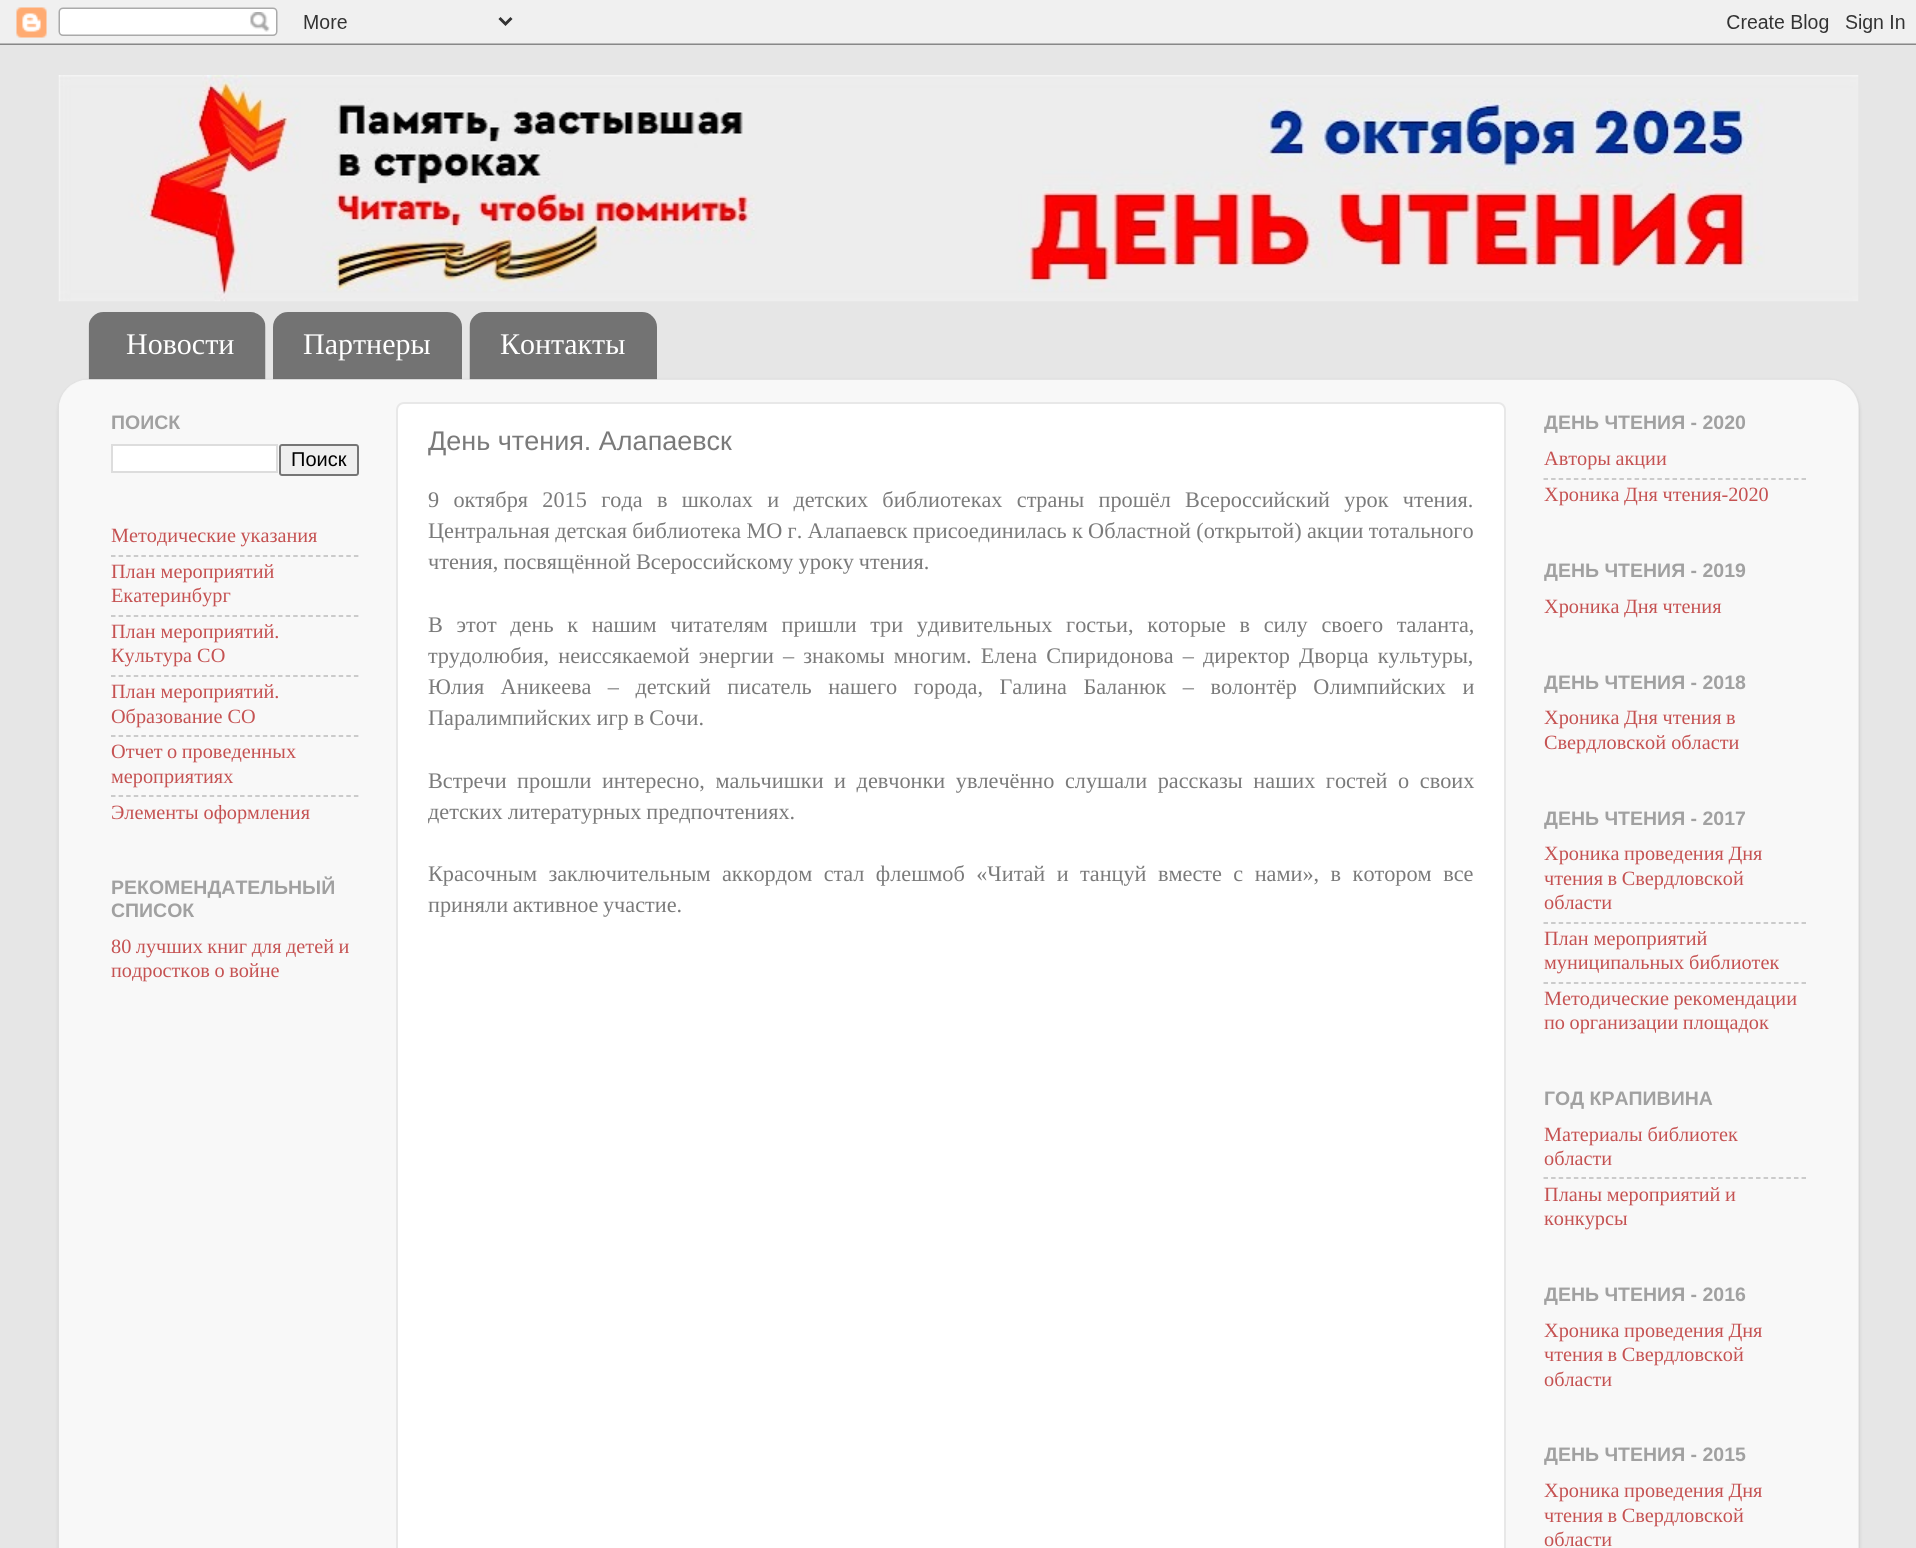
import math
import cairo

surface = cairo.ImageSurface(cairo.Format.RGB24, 1916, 1548)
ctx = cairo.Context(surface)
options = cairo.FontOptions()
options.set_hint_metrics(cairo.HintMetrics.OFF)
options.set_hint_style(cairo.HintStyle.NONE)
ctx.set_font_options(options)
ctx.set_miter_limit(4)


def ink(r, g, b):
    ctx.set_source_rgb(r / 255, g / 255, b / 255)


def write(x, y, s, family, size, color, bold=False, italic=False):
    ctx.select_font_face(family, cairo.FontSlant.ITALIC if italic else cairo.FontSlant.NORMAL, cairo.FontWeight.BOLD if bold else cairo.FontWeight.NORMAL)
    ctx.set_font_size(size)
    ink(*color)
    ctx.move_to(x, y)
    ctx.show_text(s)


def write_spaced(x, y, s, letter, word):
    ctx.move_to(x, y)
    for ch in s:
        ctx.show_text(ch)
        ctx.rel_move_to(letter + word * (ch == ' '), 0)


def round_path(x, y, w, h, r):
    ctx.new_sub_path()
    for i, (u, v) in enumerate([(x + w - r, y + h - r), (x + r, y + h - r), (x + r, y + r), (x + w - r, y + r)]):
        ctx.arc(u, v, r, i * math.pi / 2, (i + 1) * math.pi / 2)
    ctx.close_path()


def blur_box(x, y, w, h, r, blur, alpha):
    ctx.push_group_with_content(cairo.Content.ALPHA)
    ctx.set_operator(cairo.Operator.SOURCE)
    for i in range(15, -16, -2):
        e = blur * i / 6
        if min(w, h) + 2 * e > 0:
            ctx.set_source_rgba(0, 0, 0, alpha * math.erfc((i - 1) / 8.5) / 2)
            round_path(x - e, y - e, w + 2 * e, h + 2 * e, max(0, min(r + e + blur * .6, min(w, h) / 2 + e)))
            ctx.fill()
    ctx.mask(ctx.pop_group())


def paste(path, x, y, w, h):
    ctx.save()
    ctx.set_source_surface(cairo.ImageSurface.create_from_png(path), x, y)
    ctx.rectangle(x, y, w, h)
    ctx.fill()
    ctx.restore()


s1 = dict(family="Liberation Serif", size=30, color=(255, 255, 255))
s2 = dict(family="Liberation Sans", size=19.5, color=(161, 161, 161), bold=True)
s3 = dict(family="Liberation Sans", size=20, color=(0, 0, 0))
s4 = dict(family="Liberation Serif", size=20.25, color=(197, 82, 82))
s5 = dict(family="Liberation Sans", size=27, color=(122, 122, 122))

ink(230, 230, 230)
ctx.paint()
paste("pic1.png", 0, 0, 1916, 45)
paste("pic2.png", 58, 75, 1801, 227)
paste("pic3.png", 88, 312, 178, 68)
write(126, 354, "Новости", **s1)
paste("pic4.png", 273, 312, 189, 68)
write(303, 354, "Партнеры", **s1)
paste("pic5.png", 469, 312, 188, 68)
write(500, 354, "Контакты", **s1)
ctx.save()
ctx.set_fill_rule(cairo.FillRule.EVEN_ODD)
ctx.new_path()
ctx.move_to(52, 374)
ctx.line_to(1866, 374)
ctx.line_to(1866, 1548)
ctx.line_to(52, 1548)
ctx.close_path()
ctx.move_to(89, 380)
ctx.line_to(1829, 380)
ctx.curve_to(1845.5, 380, 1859, 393.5, 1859, 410)
ctx.line_to(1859, 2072)
ctx.line_to(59, 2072)
ctx.line_to(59, 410)
ctx.curve_to(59, 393.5, 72.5, 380, 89, 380)
ctx.close_path()
ctx.clip()
ink(0, 0, 0)
blur_box(59, 381, 1800, 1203, 30, 2, 0.15)
ctx.restore()
paste("pic6.png", 58, 379, 1801, 1169)
write(111, 429, "ПОИСК", **s2)
ink(255, 255, 255)
ctx.rectangle(112, 445, 165, 27)
ctx.fill_preserve()
ink(221, 221, 221)
ctx.stroke()
ink(239, 239, 239)
round_path(280, 445, 78, 30, 2)
ctx.fill_preserve()
ink(118, 118, 118)
ctx.stroke()
write(291, 466, "Поиск", **s3)
ctx.select_font_face("Liberation Serif")
ctx.set_font_size(20.25)
ink(197, 82, 82)
write_spaced(111, 542, "Методические указания", 0, -0.5)
ctx.new_path()
ctx.move_to(111, 556)
ctx.line_to(358.5, 556)
ink(188, 188, 188)
ctx.set_line_width(1.5)
ctx.set_dash([4.5, 3.09])
ctx.stroke()
write(111, 578, "План мероприятий", **s4)
write(111, 602, "Екатеринбург", **s4)
ctx.new_path()
ctx.move_to(111, 616)
ctx.line_to(358.5, 616)
ink(188, 188, 188)
ctx.stroke()
write(111, 638, "План мероприятий.", **s4)
write(111, 662, "Культура СО", **s4)
ctx.new_path()
ctx.move_to(111, 676)
ctx.line_to(358.5, 676)
ink(188, 188, 188)
ctx.stroke()
write(111, 698, "План мероприятий.", **s4)
write(111, 723, "Образование СО", **s4)
ctx.new_path()
ctx.move_to(111, 736)
ctx.line_to(358.5, 736)
ink(188, 188, 188)
ctx.stroke()
ink(197, 82, 82)
write_spaced(111, 758, "Отчет о проведенных", 0, -0.5)
write(111, 783, "мероприятиях", **s4)
ctx.new_path()
ctx.move_to(111, 796)
ctx.line_to(358.5, 796)
ink(188, 188, 188)
ctx.stroke()
write(111, 819, "Элементы оформления", **s4)
write(111, 894, "РЕКОМЕНДАТЕЛЬНЫЙ", **s2)
write(111, 917, "СПИСОК", **s2)
ctx.select_font_face("Liberation Serif")
ctx.set_font_size(20.25)
ink(197, 82, 82)
write_spaced(111, 953, "80 лучших книг для детей и", 0, -0.5)
write_spaced(111, 977, "подростков о войне", 0, -0.5)
ink(255, 255, 255)
round_path(397, 403, 1108, 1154, 7)
ctx.fill_preserve()
ink(232, 232, 232)
ctx.set_line_width(2)
ctx.set_dash([])
ctx.stroke()
write(428, 450, "День чтения. Алапаевск", **s5)
ctx.select_font_face("Liberation Serif")
ctx.set_font_size(22.25)
write_spaced(428, 507, "9 октября 2015 года в школах и детских библиотеках страны прошёл Всероссийский урок чтения.", 0, 8.75)
write_spaced(428, 538, "Центральная детская библиотека МО г. Алапаевск присоединилась к Областной (открытой) акции тотального", 0, -0.25)
write_spaced(428, 569, "чтения, посвящённой Всероссийскому уроку чтения.", 0, -0.5)
write_spaced(428, 632, "В этот день к нашим читателям пришли три удивительных гостьи, которые в силу своего таланта,", 0, 8.1)
write_spaced(428, 663, "трудолюбия, неиссякаемой энергии – знакомы многим. Елена Спиридонова – директор Дворца культуры,", 0, 3.5)
write_spaced(428, 694, "Юлия Аникеева – детский писатель нашего города, Галина Баланюк – волонтёр Олимпийских и", 0, 10.9)
write_spaced(428, 725, "Паралимпийских игр в Сочи.", 0, -0.5)
write_spaced(428, 788, "Встречи прошли интересно, мальчишки и девчонки увлечённо слушали рассказы наших гостей о своих", 0, 5)
write_spaced(428, 819, "детских литературных предпочтениях.", 0, -0.5)
write_spaced(428, 881, "Красочным заключительным аккордом стал флешмоб «Читай и танцуй вместе с нами», в котором все", 0, 5.9)
write_spaced(428, 912, "приняли активное участие.", 0, -1)
write(1544, 429, "ДЕНЬ ЧТЕНИЯ - 2020", **s2)
ctx.select_font_face("Liberation Serif")
ctx.set_font_size(20.25)
ink(197, 82, 82)
write_spaced(1544, 465, "Авторы акции", 0, -0.5)
ctx.new_path()
ctx.move_to(1543.5, 479)
ctx.line_to(1806, 479)
ink(188, 188, 188)
ctx.set_line_width(1.5)
ctx.set_dash([4.5, 3.09])
ctx.stroke()
ink(197, 82, 82)
write_spaced(1544, 501, "Хроника Дня чтения-2020", 0, -0.5)
write(1544, 577, "ДЕНЬ ЧТЕНИЯ - 2019", **s2)
ctx.select_font_face("Liberation Serif")
ctx.set_font_size(20.25)
ink(197, 82, 82)
write_spaced(1544, 613, "Хроника Дня чтения", 0, -0.5)
write(1544, 689, "ДЕНЬ ЧТЕНИЯ - 2018", **s2)
ctx.select_font_face("Liberation Serif")
ctx.set_font_size(20.25)
ink(197, 82, 82)
write_spaced(1544, 724, "Хроника Дня чтения в", 0, -0.5)
write(1544, 749, "Свердловской области", **s4)
write(1544, 825, "ДЕНЬ ЧТЕНИЯ - 2017", **s2)
ctx.select_font_face("Liberation Serif")
ctx.set_font_size(20.25)
ink(197, 82, 82)
write_spaced(1544, 860, "Хроника проведения Дня", 0, -0.5)
write_spaced(1544, 885, "чтения в Свердловской", 0, -0.5)
write(1544, 909, "области", **s4)
ctx.new_path()
ctx.move_to(1543.5, 923)
ctx.line_to(1806, 923)
ink(188, 188, 188)
ctx.stroke()
write(1544, 945, "План мероприятий", **s4)
write(1544, 969, "муниципальных библиотек", **s4)
ctx.new_path()
ctx.move_to(1543.5, 983)
ctx.line_to(1806, 983)
ink(188, 188, 188)
ctx.stroke()
ink(197, 82, 82)
write_spaced(1544, 1005, "Методические рекомендации", 0, -0.5)
write_spaced(1544, 1029, "по организации площадок", 0, -0.5)
write(1544, 1105, "ГОД КРАПИВИНА", **s2)
write(1544, 1141, "Материалы библиотек", **s4)
write(1544, 1165, "области", **s4)
ctx.new_path()
ctx.move_to(1543.5, 1178)
ctx.line_to(1806, 1178)
ink(188, 188, 188)
ctx.stroke()
ink(197, 82, 82)
write_spaced(1544, 1201, "Планы мероприятий и", 0, -0.5)
write(1544, 1225, "конкурсы", **s4)
write(1544, 1301, "ДЕНЬ ЧТЕНИЯ - 2016", **s2)
ctx.select_font_face("Liberation Serif")
ctx.set_font_size(20.25)
ink(197, 82, 82)
write_spaced(1544, 1337, "Хроника проведения Дня", 0, -0.5)
write_spaced(1544, 1361, "чтения в Свердловской", 0, -0.5)
write(1544, 1386, "области", **s4)
write(1544, 1461, "ДЕНЬ ЧТЕНИЯ - 2015", **s2)
ctx.select_font_face("Liberation Serif")
ctx.set_font_size(20.25)
ink(197, 82, 82)
write_spaced(1544, 1497, "Хроника проведения Дня", 0, -0.5)
write_spaced(1544, 1522, "чтения в Свердловской", 0, -0.5)
write(1544, 1546, "области", **s4)
surface.write_to_png("screenshot.png")
